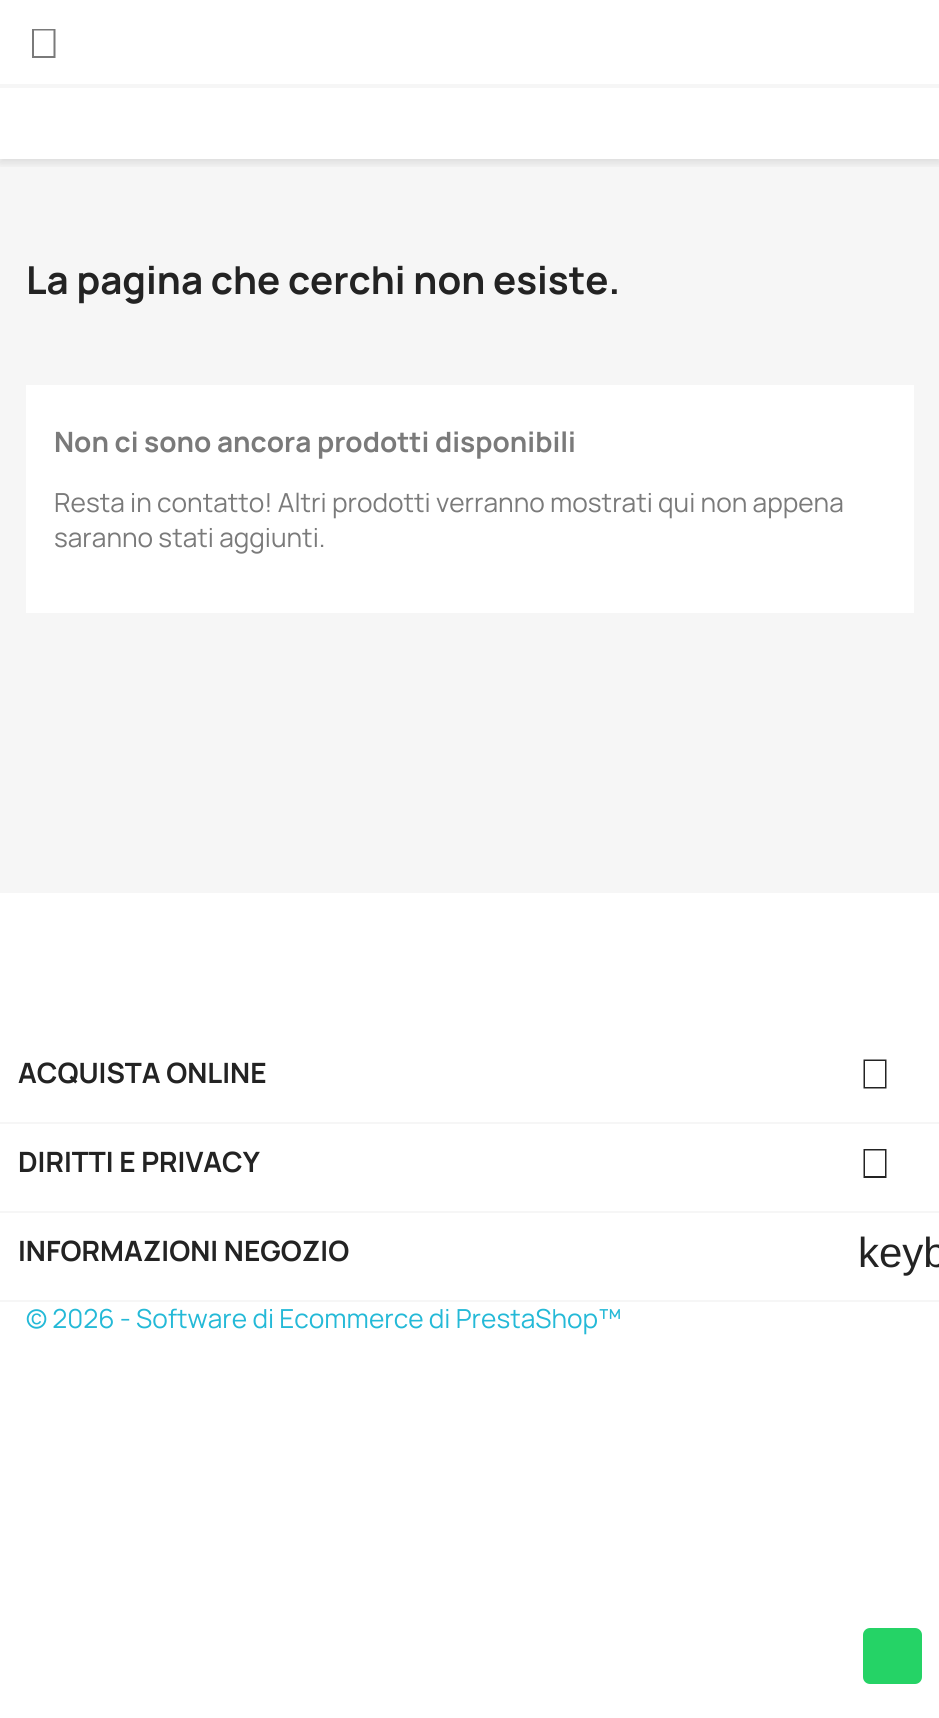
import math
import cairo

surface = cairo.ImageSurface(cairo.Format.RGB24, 939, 1718)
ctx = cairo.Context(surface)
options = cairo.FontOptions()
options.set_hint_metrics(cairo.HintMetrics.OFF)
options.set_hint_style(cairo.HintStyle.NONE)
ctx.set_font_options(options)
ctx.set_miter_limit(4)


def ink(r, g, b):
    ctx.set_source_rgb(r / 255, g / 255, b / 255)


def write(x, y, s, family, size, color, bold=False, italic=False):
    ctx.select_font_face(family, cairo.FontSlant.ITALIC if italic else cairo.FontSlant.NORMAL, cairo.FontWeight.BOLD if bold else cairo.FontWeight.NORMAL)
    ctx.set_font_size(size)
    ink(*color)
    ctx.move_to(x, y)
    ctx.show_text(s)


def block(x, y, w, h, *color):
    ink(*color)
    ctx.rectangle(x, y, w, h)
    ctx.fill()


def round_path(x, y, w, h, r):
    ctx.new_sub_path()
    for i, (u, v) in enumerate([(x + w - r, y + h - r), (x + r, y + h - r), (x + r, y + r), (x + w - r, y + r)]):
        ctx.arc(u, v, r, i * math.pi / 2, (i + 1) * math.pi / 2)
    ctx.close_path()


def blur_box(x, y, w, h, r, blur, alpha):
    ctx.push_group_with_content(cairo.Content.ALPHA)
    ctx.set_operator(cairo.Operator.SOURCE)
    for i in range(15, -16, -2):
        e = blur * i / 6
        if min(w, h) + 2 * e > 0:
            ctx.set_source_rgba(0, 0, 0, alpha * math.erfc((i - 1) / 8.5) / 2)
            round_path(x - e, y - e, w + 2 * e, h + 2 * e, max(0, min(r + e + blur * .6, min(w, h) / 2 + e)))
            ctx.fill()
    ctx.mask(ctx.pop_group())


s1 = dict(family="Manrope", size=38.5, color=(35, 35, 35), bold=True)
s2 = dict(family="Manrope", size=28, color=(122, 122, 122), bold=True)
s3 = dict(family="Manrope", size=26.25, color=(122, 122, 122))
s4 = dict(family="Manrope", size=28, color=(35, 35, 35), bold=True)
s5 = dict(family="Liberation Sans", size=42, color=(35, 35, 35))
s6 = dict(family="Manrope", size=26.25, color=(36, 185, 215))

ink(255, 255, 255)
ctx.paint()
block(0, 159, 939, 734, 246, 246, 246)
ctx.save()
ctx.rectangle(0, 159, 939, 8)
ctx.clip()
ink(0, 0, 0)
blur_box(0, 4, 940, 159, 0, 4.5, 0.11)
ctx.restore()
block(0, 84, 939, 4, 246, 246, 246)
ink(122, 122, 122)
ctx.new_path()
ctx.move_to(32, 29)
ctx.line_to(55.5, 29)
ctx.line_to(55.5, 58)
ctx.line_to(32, 58)
ctx.close_path()
ctx.move_to(34, 30.5)
ctx.line_to(34, 56)
ctx.line_to(53.5, 56)
ctx.line_to(53.5, 30.5)
ctx.close_path()
ctx.fill()
write(26, 294, "La pagina che cerchi non esiste.", **s1)
block(26, 385, 888, 228, 255, 255, 255)
write(54, 452, "Non ci sono ancora prodotti disponibili", **s2)
write(54, 512, "Resta in contatto! Altri prodotti verranno mostrati qui non appena", **s3)
write(54, 547, "saranno stati aggiunti.", **s3)
block(0, 1122, 939, 2, 246, 246, 246)
write(18, 1083, "ACQUISTA ONLINE", **s4)
ctx.new_path()
ctx.move_to(863.5, 1059.5)
ctx.line_to(886.5, 1059.5)
ctx.line_to(886.5, 1088.5)
ctx.line_to(863.5, 1088.5)
ctx.close_path()
ctx.move_to(865, 1061)
ctx.line_to(865, 1087)
ctx.line_to(885, 1087)
ctx.line_to(885, 1061)
ctx.close_path()
ctx.fill()
block(0, 1211, 939, 2, 246, 246, 246)
write(18, 1172, "DIRITTI E PRIVACY", **s4)
ctx.new_path()
ctx.move_to(863.5, 1149)
ctx.line_to(886.5, 1149)
ctx.line_to(886.5, 1178)
ctx.line_to(863.5, 1178)
ctx.close_path()
ctx.move_to(865, 1150.5)
ctx.line_to(865, 1176)
ctx.line_to(885, 1176)
ctx.line_to(885, 1150.5)
ctx.close_path()
ctx.fill()
block(0, 1300, 939, 2, 246, 246, 246)
write(18, 1261, "INFORMAZIONI NEGOZIO", **s4)
write(858, 1267, "keyb", **s5)
write(26, 1328, "© 2026 - Software di Ecommerce di PrestaShop™", **s6)
ink(37, 211, 102)
round_path(863, 1628, 59, 56, 7)
ctx.fill()
surface.write_to_png("screenshot.png")
